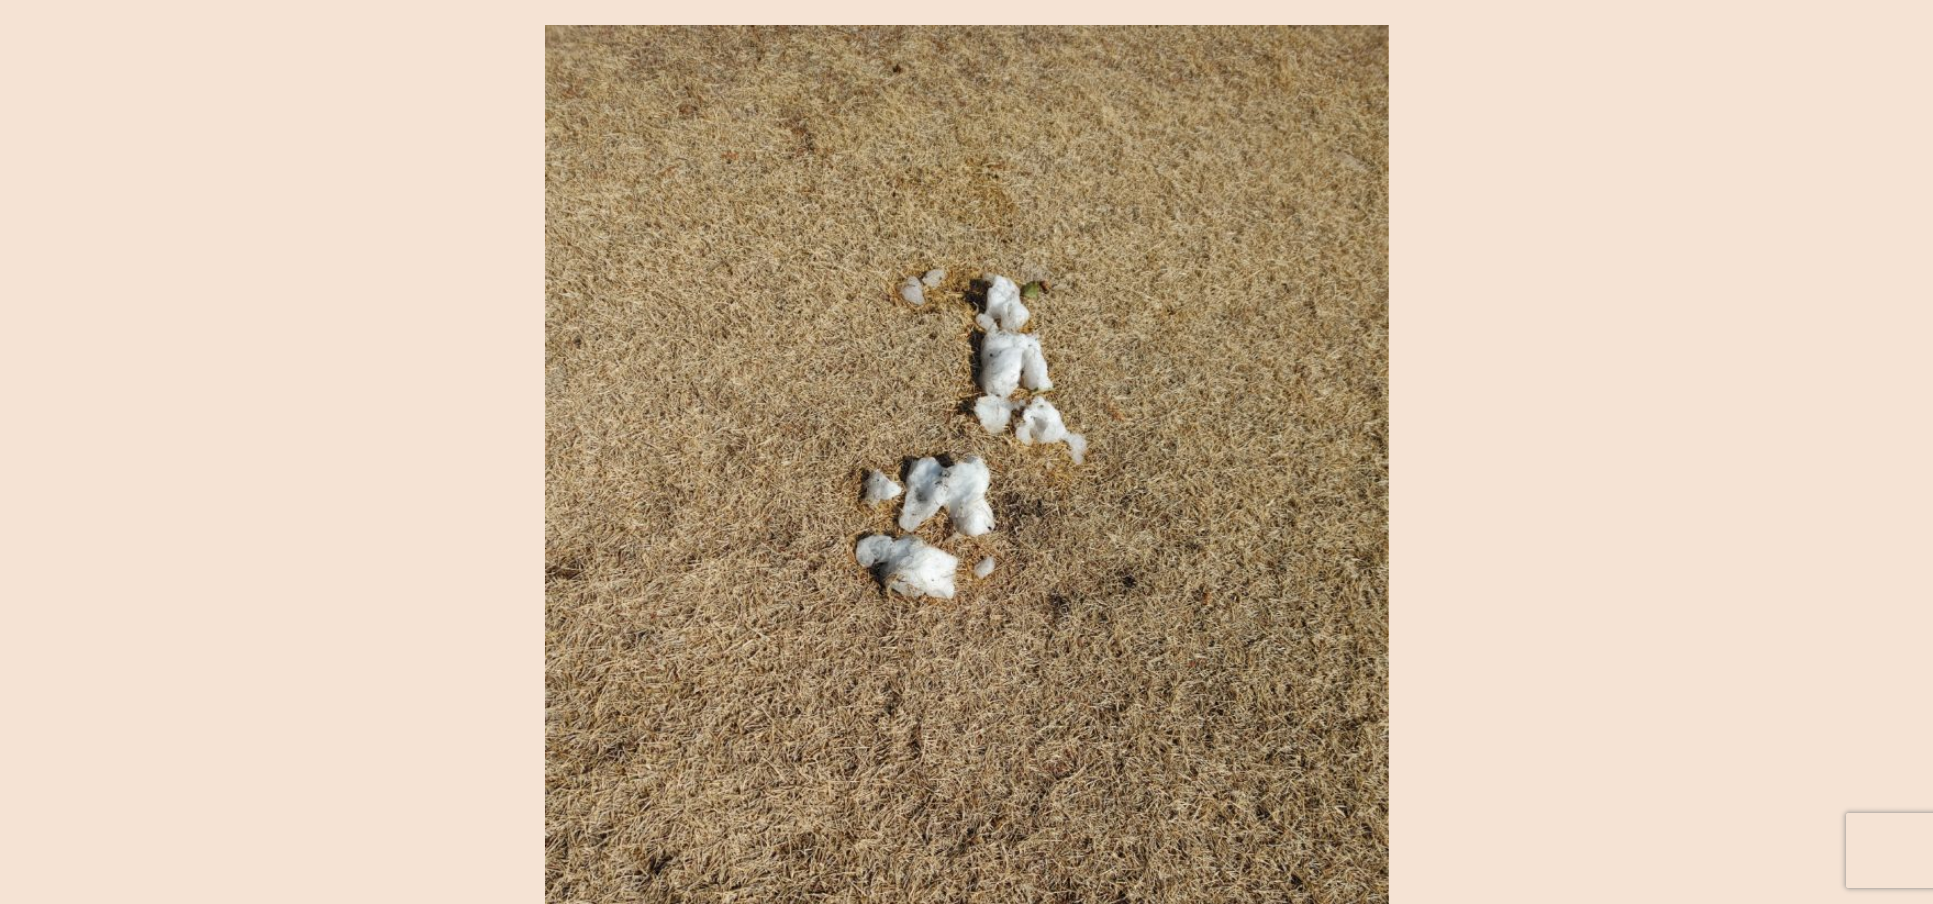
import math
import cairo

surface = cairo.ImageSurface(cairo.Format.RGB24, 1933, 904)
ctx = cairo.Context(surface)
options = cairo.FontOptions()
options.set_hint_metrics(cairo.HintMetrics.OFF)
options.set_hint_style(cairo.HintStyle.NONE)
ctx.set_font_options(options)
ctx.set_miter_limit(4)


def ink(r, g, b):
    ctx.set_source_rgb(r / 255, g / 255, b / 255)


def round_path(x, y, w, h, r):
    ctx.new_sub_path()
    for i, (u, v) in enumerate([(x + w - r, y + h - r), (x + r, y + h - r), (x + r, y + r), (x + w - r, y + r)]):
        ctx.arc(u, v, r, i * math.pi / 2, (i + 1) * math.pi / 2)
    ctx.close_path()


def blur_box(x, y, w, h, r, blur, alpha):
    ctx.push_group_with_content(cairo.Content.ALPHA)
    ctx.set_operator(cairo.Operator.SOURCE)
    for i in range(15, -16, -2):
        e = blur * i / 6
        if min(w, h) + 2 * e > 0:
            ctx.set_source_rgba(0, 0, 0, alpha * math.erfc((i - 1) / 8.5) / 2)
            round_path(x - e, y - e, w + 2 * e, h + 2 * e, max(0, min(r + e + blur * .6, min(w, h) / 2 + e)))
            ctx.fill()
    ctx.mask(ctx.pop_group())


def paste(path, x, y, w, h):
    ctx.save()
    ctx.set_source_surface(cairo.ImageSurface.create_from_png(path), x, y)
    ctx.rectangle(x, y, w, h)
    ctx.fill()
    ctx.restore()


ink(245, 227, 212)
ctx.paint()
paste("pic1.png", 545, 25, 844, 879)
ctx.save()
ctx.set_fill_rule(cairo.FillRule.EVEN_ODD)
ctx.new_path()
ctx.move_to(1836, 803)
ctx.line_to(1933, 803)
ctx.line_to(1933, 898)
ctx.line_to(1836, 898)
ctx.close_path()
ctx.move_to(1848.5, 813)
ctx.line_to(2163.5, 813)
ctx.curve_to(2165, 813, 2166, 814, 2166, 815.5)
ctx.line_to(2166, 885.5)
ctx.curve_to(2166, 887, 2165, 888, 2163.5, 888)
ctx.line_to(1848.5, 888)
ctx.curve_to(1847, 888, 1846, 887, 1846, 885.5)
ctx.line_to(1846, 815.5)
ctx.curve_to(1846, 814, 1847, 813, 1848.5, 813)
ctx.close_path()
ctx.clip()
ink(128, 128, 128)
blur_box(1846, 813, 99, 75, 2.5, 3, 1)
ctx.restore()
surface.write_to_png("screenshot.png")
